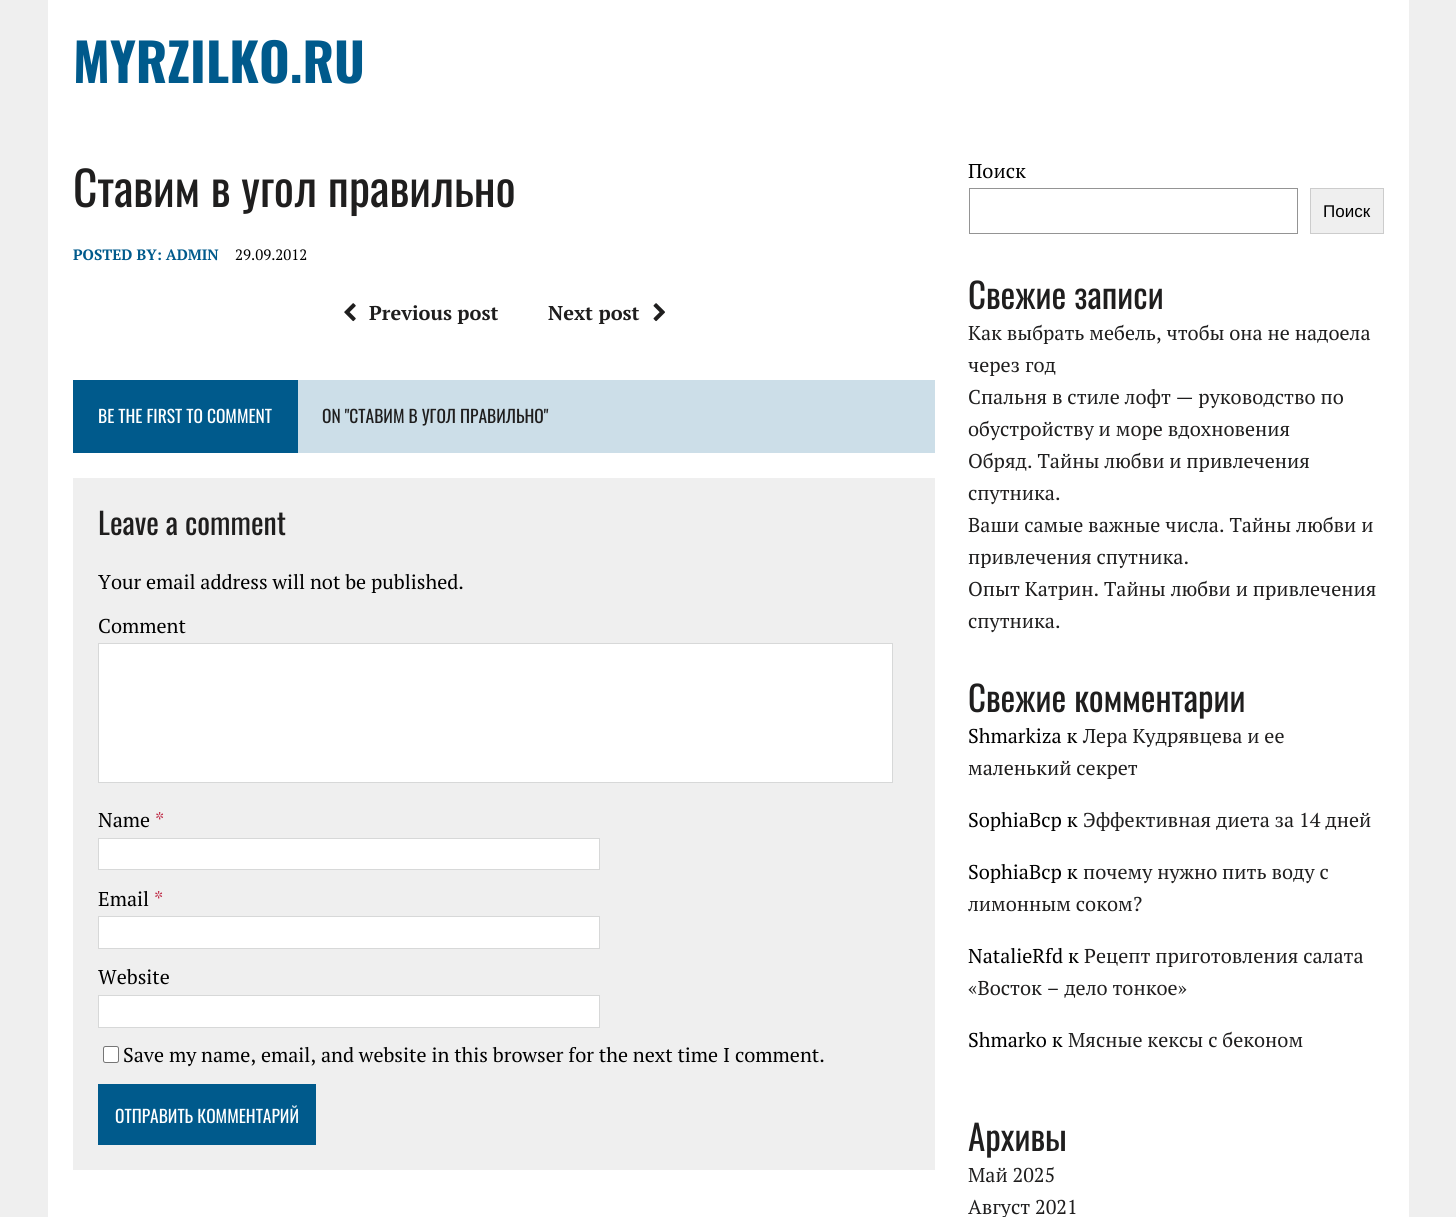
import math
import cairo

surface = cairo.ImageSurface(cairo.Format.RGB24, 1456, 1217)
ctx = cairo.Context(surface)
options = cairo.FontOptions()
options.set_hint_metrics(cairo.HintMetrics.OFF)
options.set_hint_style(cairo.HintStyle.NONE)
ctx.set_font_options(options)
ctx.set_miter_limit(4)


def ink(r, g, b):
    ctx.set_source_rgb(r / 255, g / 255, b / 255)


def write(x, y, s, family, size, color, bold=False, italic=False):
    ctx.select_font_face(family, cairo.FontSlant.ITALIC if italic else cairo.FontSlant.NORMAL, cairo.FontWeight.BOLD if bold else cairo.FontWeight.NORMAL)
    ctx.set_font_size(size)
    ink(*color)
    ctx.move_to(x, y)
    ctx.show_text(s)


def block(x, y, w, h, *color):
    ink(*color)
    ctx.rectangle(x, y, w, h)
    ctx.fill()


def round_path(x, y, w, h, r):
    ctx.new_sub_path()
    for i, (u, v) in enumerate([(x + w - r, y + h - r), (x + r, y + h - r), (x + r, y + r), (x + w - r, y + r)]):
        ctx.arc(u, v, r, i * math.pi / 2, (i + 1) * math.pi / 2)
    ctx.close_path()


def paste(path, x, y, w, h):
    ctx.save()
    ctx.set_source_surface(cairo.ImageSurface.create_from_png(path), x, y)
    ctx.rectangle(x, y, w, h)
    ctx.fill()
    ctx.restore()


s1 = dict(family="Oswald", size=52.5, color=(0, 90, 140), bold=True)
s2 = dict(family="Oswald", size=47.5, color=(31, 30, 30))
s3 = dict(family="PT Serif", size=15, color=(0, 90, 140), bold=True)
s4 = dict(family="PT Serif", size=15, color=(0, 0, 0))
s5 = dict(family="PT Serif", size=20, color=(31, 30, 30), bold=True)
s6 = dict(family="Oswald", size=17.5, color=(255, 255, 255))
s7 = dict(family="Oswald", size=17.5, color=(31, 30, 30))
s8 = dict(family="Oswald", size=30, color=(31, 30, 30))
s9 = dict(family="PT Serif", size=20, color=(0, 0, 0))
s10 = dict(family="PT Serif", size=20, color=(190, 40, 68))
s11 = dict(family="Liberation Sans", size=17, color=(0, 0, 0))
s12 = dict(family="Oswald", size=35, color=(31, 30, 30))
s13 = dict(family="PT Serif", size=20, color=(31, 30, 30))

ink(239, 239, 239)
ctx.paint()
block(48, 0, 1361, 1217, 255, 255, 255)
write(73, 83, "MYRZILKO.RU", **s1)
write(73, 207, "Ставим в угол правильно", **s2)
write(73, 260, "POSTED BY: ADMIN", **s3)
write(235, 260, "29.09.2012", **s4)
paste("pic1.png", 344, 303, 12, 19)
write(369, 320, "Previous post", **s5)
write(548, 320, "Next post", **s5)
paste("pic2.png", 653, 303, 12, 19)
block(298, 380, 637, 73, 204, 222, 232)
block(73, 380, 225, 73, 0, 90, 140)
write(98, 423, "BE THE FIRST TO COMMENT", **s6)
write(322, 423, "ON \"СТАВИМ В УГОЛ ПРАВИЛЬНО\"", **s7)
block(73, 478, 862, 692, 239, 239, 239)
write(98, 535, "Leave a comment", **s8)
write(98, 589, "Your email address will not be published.", **s9)
write(98, 633, "Comment", **s9)
ink(255, 255, 255)
ctx.rectangle(98.5, 643.5, 794, 139)
ctx.fill_preserve()
ink(215, 216, 216)
ctx.set_line_width(1)
ctx.stroke()
write(98, 827, "Name", **s9)
write(155, 827, "*", **s10)
ink(255, 255, 255)
ctx.rectangle(98.5, 838.5, 501, 31)
ctx.fill_preserve()
ink(215, 216, 216)
ctx.stroke()
write(98, 906, "Email", **s9)
write(154, 906, "*", **s10)
ink(255, 255, 255)
ctx.rectangle(98.5, 916.5, 501, 32)
ctx.fill_preserve()
ink(215, 216, 216)
ctx.stroke()
write(98, 984, "Website", **s9)
ink(255, 255, 255)
ctx.rectangle(98.5, 995.5, 501, 32)
ctx.fill_preserve()
ink(215, 216, 216)
ctx.stroke()
ink(255, 255, 255)
round_path(103.5, 1046.5, 15, 16, 2)
ctx.fill_preserve()
ink(118, 118, 118)
ctx.stroke()
write(123, 1062, "Save my name, email, and website in this browser for the next time I comment.", **s9)
block(98, 1084, 218, 61, 0, 90, 140)
write(115, 1123, "ОТПРАВИТЬ КОММЕНТАРИЙ", **s6)
write(968, 178, "Поиск", **s9)
ctx.rectangle(969.5, 188.5, 328, 45)
ink(148, 148, 148)
ctx.stroke()
ink(239, 239, 239)
ctx.rectangle(1310.5, 188.5, 73, 45)
ctx.fill_preserve()
ink(204, 204, 204)
ctx.stroke()
write(1323, 217, "Поиск", **s11)
write(968, 309, "Свежие записи", **s12)
write(968, 340, "Как выбрать мебель, чтобы она не надоела", **s13)
write(968, 372, "через год", **s13)
write(968, 404, "Спальня в стиле лофт — руководство по", **s13)
write(968, 436, "обустройству и море вдохновения", **s13)
write(968, 468, "Обряд. Тайны любви и привлечения", **s13)
write(968, 500, "спутника.", **s13)
write(968, 532, "Ваши самые важные числа. Тайны любви и", **s13)
write(968, 564, "привлечения спутника.", **s13)
write(968, 596, "Опыт Катрин. Тайны любви и привлечения", **s13)
write(968, 628, "спутника.", **s13)
write(968, 712, "Свежие комментарии", **s12)
write(968, 743, "Shmarkiza к", **s9)
write(1083, 743, "Лера Кудрявцева и ее", **s13)
write(968, 775, "маленький секрет", **s13)
write(968, 827, "SophiaBcp к", **s9)
write(1083, 827, "Эффективная диета за 14 дней", **s13)
write(968, 879, "SophiaBcp к", **s9)
write(1083, 879, "почему нужно пить воду с", **s13)
write(968, 911, "лимонным соком?", **s13)
write(968, 963, "NatalieRfd к", **s9)
write(1084, 963, "Рецепт приготовления салата", **s13)
write(968, 995, "«Восток – дело тонкое»", **s13)
write(968, 1047, "Shmarko к", **s9)
write(1068, 1047, "Мясные кексы с беконом", **s13)
write(968, 1151, "Архивы", **s12)
write(968, 1182, "Май 2025", **s13)
write(968, 1214, "Август 2021", **s13)
surface.write_to_png("screenshot.png")
